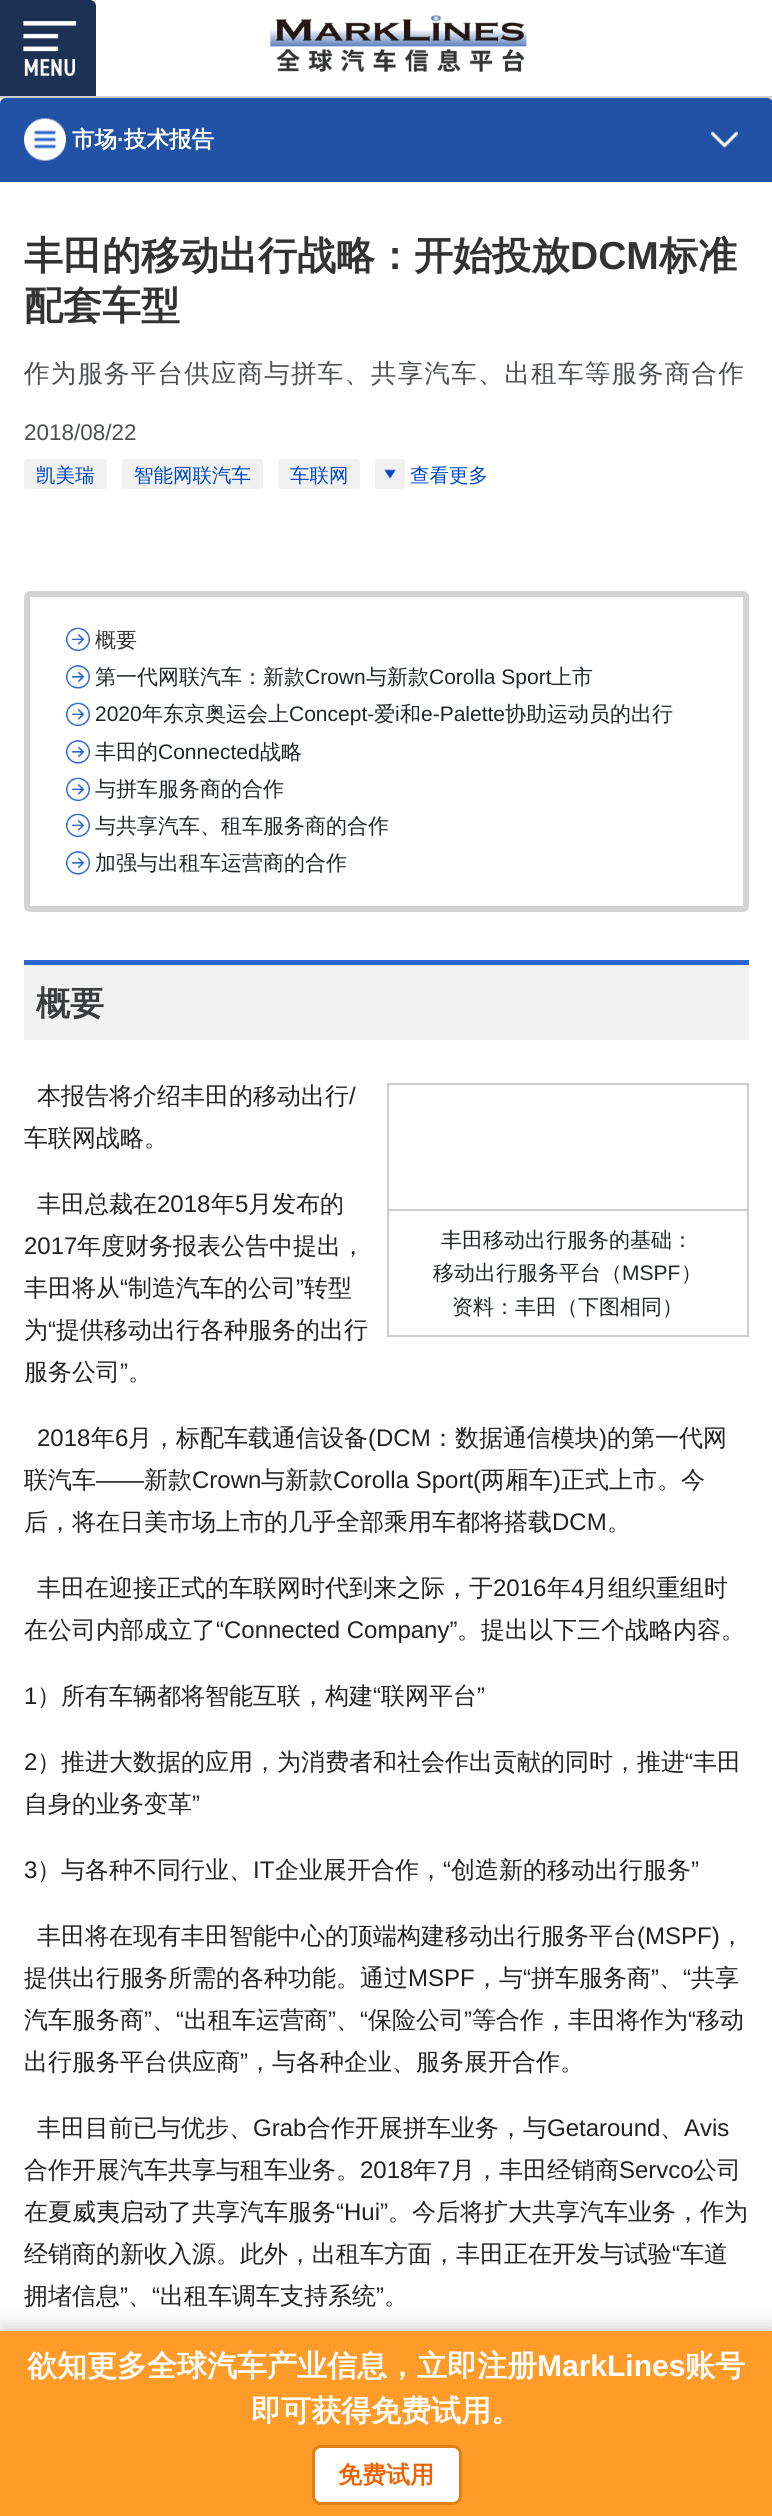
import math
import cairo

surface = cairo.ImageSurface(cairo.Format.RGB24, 772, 2516)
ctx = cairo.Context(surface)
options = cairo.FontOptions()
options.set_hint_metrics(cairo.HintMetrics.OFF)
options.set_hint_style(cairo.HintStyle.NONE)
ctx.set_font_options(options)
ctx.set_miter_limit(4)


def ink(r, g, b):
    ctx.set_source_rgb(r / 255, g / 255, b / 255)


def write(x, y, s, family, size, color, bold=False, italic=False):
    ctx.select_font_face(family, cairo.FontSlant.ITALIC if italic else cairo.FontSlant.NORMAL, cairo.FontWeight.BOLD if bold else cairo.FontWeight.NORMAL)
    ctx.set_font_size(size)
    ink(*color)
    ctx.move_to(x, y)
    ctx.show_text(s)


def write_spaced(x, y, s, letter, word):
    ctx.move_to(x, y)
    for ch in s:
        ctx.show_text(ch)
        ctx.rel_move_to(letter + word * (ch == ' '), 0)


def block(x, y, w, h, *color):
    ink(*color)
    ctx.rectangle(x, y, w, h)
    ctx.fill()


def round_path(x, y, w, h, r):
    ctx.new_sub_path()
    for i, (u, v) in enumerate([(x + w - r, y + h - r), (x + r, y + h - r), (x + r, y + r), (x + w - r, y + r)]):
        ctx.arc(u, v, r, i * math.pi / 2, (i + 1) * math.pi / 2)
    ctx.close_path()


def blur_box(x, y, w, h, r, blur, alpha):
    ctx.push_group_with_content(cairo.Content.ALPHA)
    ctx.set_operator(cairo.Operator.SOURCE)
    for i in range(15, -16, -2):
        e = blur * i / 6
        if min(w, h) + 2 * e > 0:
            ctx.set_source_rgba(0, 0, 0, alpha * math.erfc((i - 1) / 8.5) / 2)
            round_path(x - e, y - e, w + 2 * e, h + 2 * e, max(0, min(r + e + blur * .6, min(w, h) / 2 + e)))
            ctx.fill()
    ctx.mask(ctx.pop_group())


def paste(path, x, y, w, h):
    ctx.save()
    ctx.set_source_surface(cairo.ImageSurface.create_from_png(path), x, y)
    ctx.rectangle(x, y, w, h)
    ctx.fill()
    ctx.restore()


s1 = dict(family="WenQuanYi Zen Hei", size=22.5, color=(255, 255, 255), bold=True)
s2 = dict(family="Liberation Sans", size=22.5, color=(255, 255, 255), bold=True)
s3 = dict(family="WenQuanYi Zen Hei", size=39, color=(51, 51, 51), bold=True)
s4 = dict(family="Liberation Sans", size=39, color=(51, 51, 51), bold=True)
s5 = dict(family="Liberation Sans", size=22.5, color=(77, 79, 82))
s6 = dict(family="WenQuanYi Zen Hei Medium", size=19.5, color=(0, 72, 198))
s7 = dict(family="WenQuanYi Zen Hei Medium", size=21, color=(51, 51, 51))
s8 = dict(family="WenQuanYi Zen Hei Medium", size=21, color=(33, 37, 41))
s9 = dict(family="Liberation Sans", size=21, color=(33, 37, 41))
s10 = dict(family="WenQuanYi Zen Hei", size=34, color=(59, 60, 61), bold=True)
s11 = dict(family="WenQuanYi Zen Hei Medium", size=24, color=(34, 34, 34))
s12 = dict(family="Liberation Sans", size=24, color=(34, 34, 34))
s13 = dict(family="WenQuanYi Zen Hei", size=30, color=(255, 255, 255), bold=True)
s14 = dict(family="Liberation Sans", size=30, color=(255, 255, 255), bold=True)
s15 = dict(family="WenQuanYi Zen Hei", size=24, color=(238, 99, 0), bold=True)

ink(255, 255, 255)
ctx.paint()
block(0, 96, 772, 2, 204, 204, 204)
paste("pic1.png", 0, 0, 96, 96)
paste("pic2.png", 270, 15, 257, 57)
ink(33, 82, 166)
ctx.new_path()
ctx.move_to(6, 98)
ctx.line_to(767, 98)
ctx.curve_to(770.5, 98, 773, 100.5, 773, 104)
ctx.line_to(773, 182)
ctx.line_to(0, 182)
ctx.line_to(0, 104)
ctx.curve_to(0, 100.5, 2.5, 98, 6, 98)
ctx.close_path()
ctx.fill()
paste("pic3.png", 24, 118, 42, 43)
write(72, 147, "市场", **s1)
write(117, 147, "·", **s2)
write(124, 147, "技术报告", **s1)
paste("pic4.png", 711, 131, 27, 17)
write(24, 269, "丰田的移动出行战略：开始投放", **s3)
write(570, 269, "DCM", **s4)
write(659, 269, "标准", **s3)
write(24, 319, "配套车型", **s3)
ctx.select_font_face("WenQuanYi Zen Hei Medium")
ctx.set_font_size(25.5)
ink(77, 79, 82)
write_spaced(24, 382, "作为服务平台供应商与拼车、共享汽车、出租车等服务商合作", 1.2, 0)
write(24, 440, "2018/08/22", **s5)
ink(241, 241, 241)
round_path(24, 459, 83, 30, 3)
ctx.fill()
write(36, 482, "凯美瑞", **s6)
ink(241, 241, 241)
round_path(122, 459, 141, 30, 3)
ctx.fill()
write(134, 482, "智能网联汽车", **s6)
ink(241, 241, 241)
round_path(278, 459, 82, 30, 3)
ctx.fill()
write(290, 482, "车联网", **s6)
ink(241, 241, 241)
round_path(375, 459, 30, 30, 3)
ctx.fill()
paste("pic5.png", 384, 469, 12, 10)
write(410, 482, "查看更多", **s6)
round_path(27, 594, 719, 315, 3)
ink(211, 211, 211)
ctx.set_line_width(6)
ctx.stroke()
paste("pic6.png", 66, 627, 24, 24)
write(95, 647, "概要", **s7)
paste("pic7.png", 66, 665, 24, 24)
write(95, 684, "第一代网联汽车：新款", **s8)
write(305, 684, "Crown", **s9)
write(366, 684, "与新款", **s8)
write(429, 684, "Corolla Sport", **s9)
write(551, 684, "上市", **s8)
paste("pic6.png", 66, 702, 24, 24)
write(95, 721, "2020", **s9)
write(142, 721, "年东京奥运会上", **s8)
write(289, 721, "Concept-", **s9)
write(374, 721, "爱", **s8)
write(395, 721, "i", **s9)
write(400, 721, "和", **s8)
write(421, 721, "e-Palette", **s9)
write(505, 721, "协助运动员的出行", **s8)
paste("pic7.png", 66, 740, 24, 24)
write(95, 759, "丰田的", **s8)
write(158, 759, "Connected", **s9)
write(260, 759, "战略", **s8)
paste("pic6.png", 66, 777, 24, 24)
write(95, 796, "与拼车服务商的合作", **s8)
paste("pic6.png", 66, 813, 24, 24)
write(95, 833, "与共享汽车、租车服务商的合作", **s8)
paste("pic7.png", 66, 851, 24, 24)
write(95, 870, "加强与出租车运营商的合作", **s8)
block(24, 965, 725, 75, 242, 242, 242)
block(24, 960, 725, 5, 41, 101, 204)
write(36, 1015, "概要", **s10)
write(37, 1104, "本报告将介绍丰田的移动出行", **s11)
write(349, 1104, "/", **s12)
write(24, 1146, "车联网战略。", **s11)
write(37, 1212, "丰田总裁在", **s11)
write(157, 1212, "2018", **s12)
write(211, 1212, "年", **s11)
write(235, 1212, "5", **s12)
write(248, 1212, "月发布的", **s11)
write(24, 1254, "2017", **s12)
write(77, 1254, "年度财务报表公告中提出，", **s11)
write(24, 1296, "丰田将从", **s11)
write(120, 1296, "“", **s12)
write(128, 1296, "制造汽车的公司", **s11)
write(296, 1296, "”", **s12)
write(304, 1296, "转型", **s11)
write(24, 1338, "为", **s11)
write(48, 1338, "“", **s12)
write(56, 1338, "提供移动出行各种服务的出行", **s11)
write(24, 1380, "服务公司", **s11)
write(120, 1380, "”", **s12)
write(128, 1380, "。", **s11)
block(387, 1083, 362, 2, 204, 204, 204)
block(747, 1083, 2, 254, 204, 204, 204)
block(387, 1335, 362, 2, 204, 204, 204)
block(387, 1083, 2, 254, 204, 204, 204)
block(387, 1209, 362, 2, 204, 204, 204)
write(441, 1247, "丰田移动出行服务的基础：", **s8)
write(433, 1280, "移动出行服务平台（", **s8)
write(622, 1280, "MSPF", **s9)
write(681, 1280, "）", **s8)
write(452, 1314, "资料：丰田（下图相同）", **s8)
write(37, 1446, "2018", **s12)
write(91, 1446, "年", **s11)
write(115, 1446, "6", **s12)
write(128, 1446, "月，标配车载通信设备", **s11)
write(368, 1446, "(DCM", **s12)
write(431, 1446, "：数据通信模块", **s11)
write(599, 1446, ")", **s12)
write(607, 1446, "的第一代网", **s11)
write(24, 1488, "联汽车", **s11)
write(96, 1488, "——", **s12)
write(144, 1488, "新款", **s11)
write(192, 1488, "Crown", **s12)
write(261, 1488, "与新款", **s11)
write(333, 1488, "Corolla Sport(", **s12)
write(481, 1488, "两厢车", **s11)
write(553, 1488, ")", **s12)
write(561, 1488, "正式上市。今", **s11)
write(24, 1530, "后，将在日美市场上市的几乎全部乘用车都将搭载", **s11)
write(552, 1530, "DCM", **s12)
write(607, 1530, "。", **s11)
write(37, 1596, "丰田在迎接正式的车联网时代到来之际，于", **s11)
write(493, 1596, "2016", **s12)
write(547, 1596, "年", **s11)
write(571, 1596, "4", **s12)
write(584, 1596, "月组织重组时", **s11)
write(24, 1638, "在公司内部成立了", **s11)
write(216, 1638, "“Connected Company”", **s12)
write(457, 1638, "。提出以下三个战略内容。", **s11)
write(24, 1704, "1", **s12)
write(37, 1704, "）所有车辆都将智能互联，构建", **s11)
write(373, 1704, "“", **s12)
write(381, 1704, "联网平台", **s11)
write(477, 1704, "”", **s12)
write(24, 1770, "2", **s12)
write(37, 1770, "）推进大数据的应用，为消费者和社会作出贡献的同时，推进", **s11)
write(685, 1770, "“", **s12)
write(693, 1770, "丰田", **s11)
write(24, 1812, "自身的业务变革", **s11)
write(192, 1812, "”", **s12)
write(24, 1878, "3", **s12)
write(37, 1878, "）与各种不同行业、", **s11)
write(253, 1878, "IT", **s12)
write(275, 1878, "企业展开合作，", **s11)
write(443, 1878, "“", **s12)
write(451, 1878, "创造新的移动出行服务", **s11)
write(691, 1878, "”", **s12)
write(37, 1944, "丰田将在现有丰田智能中心的顶端构建移动出行服务平台", **s11)
write(637, 1944, "(MSPF)", **s12)
write(720, 1944, "，", **s11)
write(24, 1986, "提供出行服务所需的各种功能。通过", **s11)
write(408, 1986, "MSPF", **s12)
write(475, 1986, "，与", **s11)
write(523, 1986, "“", **s12)
write(531, 1986, "拼车服务商", **s11)
write(651, 1986, "”", **s12)
write(683, 1986, "“", **s12)
write(691, 1986, "共享", **s11)
write(659, 1986, "、", **s11)
write(24, 2028, "汽车服务商", **s11)
write(144, 2028, "”", **s12)
write(176, 2028, "“", **s12)
write(184, 2028, "出租车运营商", **s11)
write(328, 2028, "”", **s12)
write(360, 2028, "“", **s12)
write(368, 2028, "保险公司", **s11)
write(464, 2028, "”", **s12)
write(472, 2028, "等合作，丰田将作为", **s11)
write(688, 2028, "“", **s12)
write(696, 2028, "移动", **s11)
write(152, 2028, "、", **s11)
write(336, 2028, "、", **s11)
write(24, 2070, "出行服务平台供应商", **s11)
write(240, 2070, "”", **s12)
write(248, 2070, "，与各种企业、服务展开合作。", **s11)
write(37, 2136, "丰田目前已与优步、", **s11)
write(253, 2136, "Grab", **s12)
write(307, 2136, "合作开展拼车业务，与", **s11)
write(547, 2136, "Getaround", **s12)
write(660, 2136, "、", **s11)
write(684, 2136, "Avis", **s12)
write(24, 2178, "合作开展汽车共享与租车业务。", **s11)
write(360, 2178, "2018", **s12)
write(413, 2178, "年", **s11)
write(437, 2178, "7", **s12)
write(451, 2178, "月，丰田经销商", **s11)
write(619, 2178, "Servco", **s12)
write(693, 2178, "公司", **s11)
write(24, 2220, "在夏威夷启动了共享汽车服务", **s11)
write(336, 2220, "“Hui”", **s12)
write(388, 2220, "。今后将扩大共享汽车业务，作为", **s11)
write(24, 2262, "经销商的新收入源。此外，出租车方面，丰田正在开发与试验", **s11)
write(672, 2262, "“", **s12)
write(680, 2262, "车道", **s11)
write(24, 2304, "拥堵信息", **s11)
write(120, 2304, "”", **s12)
write(152, 2304, "“", **s12)
write(160, 2304, "出租车调车支持系统", **s11)
write(376, 2304, "”", **s12)
write(128, 2304, "、", **s11)
write(384, 2304, "。", **s11)
ink(0, 0, 0)
blur_box(0, 2327, 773, 186, 0, 9, 0.2)
block(0, 2331, 772, 185, 255, 156, 41)
write(27, 2376, "欲知更多全球汽车产业信息，立即注册", **s13)
write(537, 2376, "MarkLines", **s14)
write(685, 2376, "账号", **s13)
write(251, 2421, "即可获得免费试用。", **s13)
round_path(313.5, 2446.5, 147, 57, 7.5)
ctx.fill_preserve()
ink(225, 129, 18)
ctx.set_line_width(3)
ctx.stroke()
write(338, 2483, "免费试用", **s15)
surface.write_to_png("screenshot.png")
